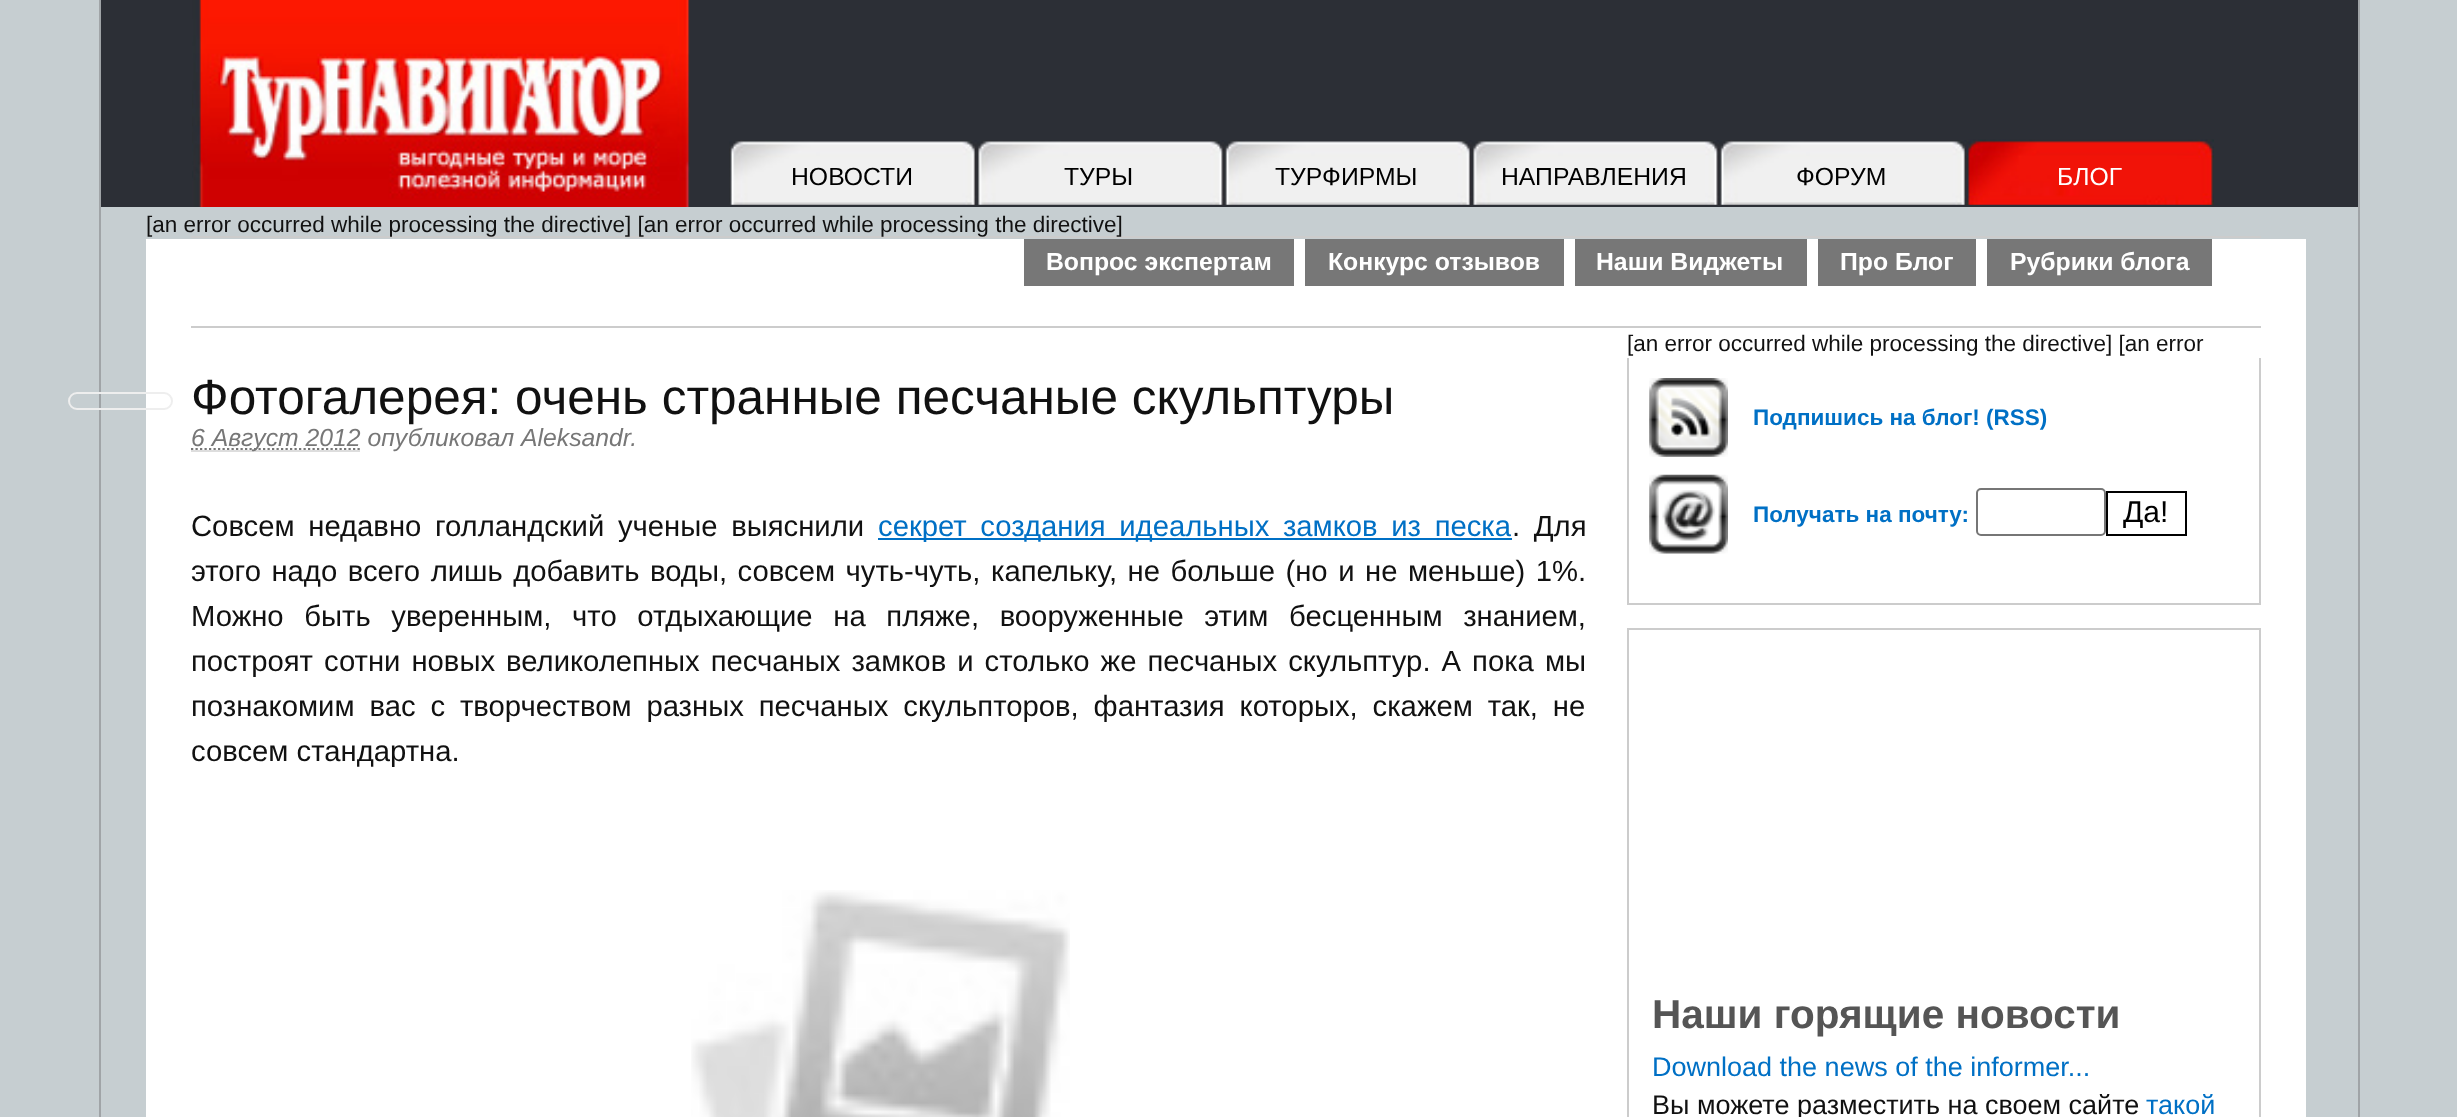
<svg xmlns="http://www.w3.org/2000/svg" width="2457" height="1117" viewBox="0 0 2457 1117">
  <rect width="100%" height="100%" fill="#c6ced1"/>
  <rect x="2358" y="0" width="2" height="1117" fill="#a0a4a7"/>
  <rect x="99" y="0" width="2" height="1117" fill="#a0a4a7"/>
  <rect x="101" y="0" width="2257" height="207" fill="#2c2f36"/>
  <image x="192" y="0" width="498" height="207" href="img1.png"/>
  <image x="729" y="140" width="248" height="65" href="img2.png"/>
  <text x="791" y="185" font-family="Liberation Sans" font-size="24.75" fill="#000000">НОВОСТИ</text>
  <image x="977" y="140" width="247" height="65" href="img3.png"/>
  <text x="1064" y="185" font-family="Liberation Sans" font-size="24.75" fill="#000000">ТУРЫ</text>
  <image x="1224" y="140" width="248" height="65" href="img4.png"/>
  <text x="1275" y="185" font-family="Liberation Sans" font-size="24.75" fill="#000000">ТУРФИРМЫ</text>
  <image x="1472" y="140" width="247" height="65" href="img5.png"/>
  <text x="1501" y="185" font-family="Liberation Sans" font-size="24.75" fill="#000000">НАПРАВЛЕНИЯ</text>
  <image x="1719" y="140" width="248" height="65" href="img6.png"/>
  <text x="1796" y="185" font-family="Liberation Sans" font-size="24.75" fill="#000000">ФОРУМ</text>
  <image x="1966" y="139" width="248" height="66" href="img7.png"/>
  <text x="2057" y="185" font-family="Liberation Sans" font-size="24.75" fill="#ffffff">БЛОГ</text>
  <rect x="146" y="239" width="2160" height="878" fill="#ffffff"/>
  <rect x="69" y="393" width="103" height="16" rx="8" fill="none" stroke="#eeeeee" stroke-width="2"/>
  <rect x="191" y="236" width="2070" height="2" fill="#cccccc"/>
  <text x="146" y="232" font-family="Liberation Sans" font-size="22.5" fill="#111111">[an error occurred while processing the directive] [an error occurred while processing the directive]</text>
  <rect x="1024" y="239" width="270" height="47" fill="#777777"/>
  <text x="1046" y="270" font-family="Liberation Sans" font-size="24.75" font-weight="bold" fill="#ffffff">Вопрос экспертам</text>
  <rect x="1305" y="239" width="259" height="47" fill="#777777"/>
  <text x="1328" y="270" font-family="Liberation Sans" font-size="24.75" font-weight="bold" fill="#ffffff">Конкурс отзывов</text>
  <rect x="1575" y="239" width="232" height="47" fill="#777777"/>
  <text x="1596" y="270" font-family="Liberation Sans" font-size="24.75" font-weight="bold" fill="#ffffff">Наши Виджеты</text>
  <rect x="1818" y="239" width="158" height="47" fill="#777777"/>
  <text x="1840" y="270" font-family="Liberation Sans" font-size="24.75" font-weight="bold" fill="#ffffff">Про Блог</text>
  <rect x="1987" y="239" width="225" height="47" fill="#777777"/>
  <text x="2010" y="270" font-family="Liberation Sans" font-size="24.75" font-weight="bold" fill="#ffffff">Рубрики блога</text>
  <rect x="191" y="326" width="2070" height="2" fill="#cccccc"/>
  <text x="1627" y="351" font-family="Liberation Sans" font-size="22.5" fill="#111111">[an error occurred while processing the directive] [an error</text>
  <text x="191" y="414" font-family="Liberation Sans" font-size="49.5" fill="#111111">Фотогалерея: очень странные песчаные скульптуры</text>
  <rect x="191" y="450" width="169" height="2" fill="#dddddd"/>
  <path d="M191 449H361" fill="none" stroke="#777777" stroke-width="2.2" stroke-dasharray="2.25 2.25"/>
  <text x="191" y="446" font-family="Liberation Sans" font-size="24.75" font-style="italic" fill="#777777">6 Август 2012 опубликовал Aleksandr.</text>
  <text x="191" y="536" word-spacing="5.5" font-family="Liberation Sans" font-size="29.25" fill="#111111">Совсем недавно голландский ученые выяснили</text>
  <rect x="878" y="538" width="634" height="2" fill="#0070c5"/>
  <text x="878" y="536" word-spacing="5.5" font-family="Liberation Sans" font-size="29.25" fill="#0070c5">секрет создания идеальных замков из песка</text>
  <text x="1512" y="536" word-spacing="5.5" font-family="Liberation Sans" font-size="29.25" fill="#111111">. Для</text>
  <text x="191" y="581" word-spacing="2.4" font-family="Liberation Sans" font-size="29.25" fill="#111111">этого надо всего лишь добавить воды, совсем чуть-чуть, капельку, не больше (но и не меньше) 1%.</text>
  <text x="191" y="626" word-spacing="12.5" font-family="Liberation Sans" font-size="29.25" fill="#111111">Можно быть уверенным, что отдыхающие на пляже, вооруженные этим бесценным знанием,</text>
  <text x="191" y="671" word-spacing="2.9" font-family="Liberation Sans" font-size="29.25" fill="#111111">построят сотни новых великолепных песчаных замков и столько же песчаных скульптур. А пока мы</text>
  <text x="191" y="716" word-spacing="6.75" font-family="Liberation Sans" font-size="29.25" fill="#111111">познакомим вас с творчеством разных песчаных скульпторов, фантазия которых, скажем так, не</text>
  <text x="191" y="761" font-family="Liberation Sans" font-size="29.25" fill="#111111">совсем стандартна.</text>
  <image x="691" y="890" width="379" height="227" href="img8.png"/>
  <rect x="2259" y="358" width="2" height="247" fill="#cccccc"/>
  <rect x="1627" y="603" width="634" height="2" fill="#cccccc"/>
  <rect x="1627" y="358" width="2" height="247" fill="#cccccc"/>
  <image x="1649" y="378" width="79" height="79" href="img9.png"/>
  <text x="1753" y="425" font-family="Liberation Sans" font-size="22.5" font-weight="bold" fill="#0070c5">Подпишись на блог! (RSS)</text>
  <image x="1649" y="474" width="79" height="80" href="img10.png"/>
  <text x="1753" y="522" font-family="Liberation Sans" font-size="22.5" font-weight="bold" fill="#0070c5">Получать на почту:</text>
  <rect x="1977" y="489" width="128" height="46" rx="4" fill="none" stroke="#767676" stroke-width="2"/>
  <rect x="2107" y="492" width="79" height="43" fill="none" stroke="#000000" stroke-width="2"/>
  <text x="2123" y="522" font-family="Liberation Sans" font-size="30" fill="#000000">Да!</text>
  <rect x="1627" y="628" width="634" height="2" fill="#cccccc"/>
  <rect x="2259" y="628" width="2" height="489" fill="#cccccc"/>
  <rect x="1627" y="628" width="2" height="489" fill="#cccccc"/>
  <text x="1652" y="1028" font-family="Liberation Sans" font-size="40.5" font-weight="bold" fill="#555555">Наши горящие новости</text>
  <text x="1652" y="1076" font-family="Liberation Sans" font-size="27" fill="#0070c5">Download the news of the informer...</text>
  <text x="1652" y="1114" font-family="Liberation Sans" font-size="27" fill="#111111">Вы можете разместить на своем сайте</text>
  <text x="2146" y="1114" font-family="Liberation Sans" font-size="27" fill="#0070c5">такой</text>
</svg>
